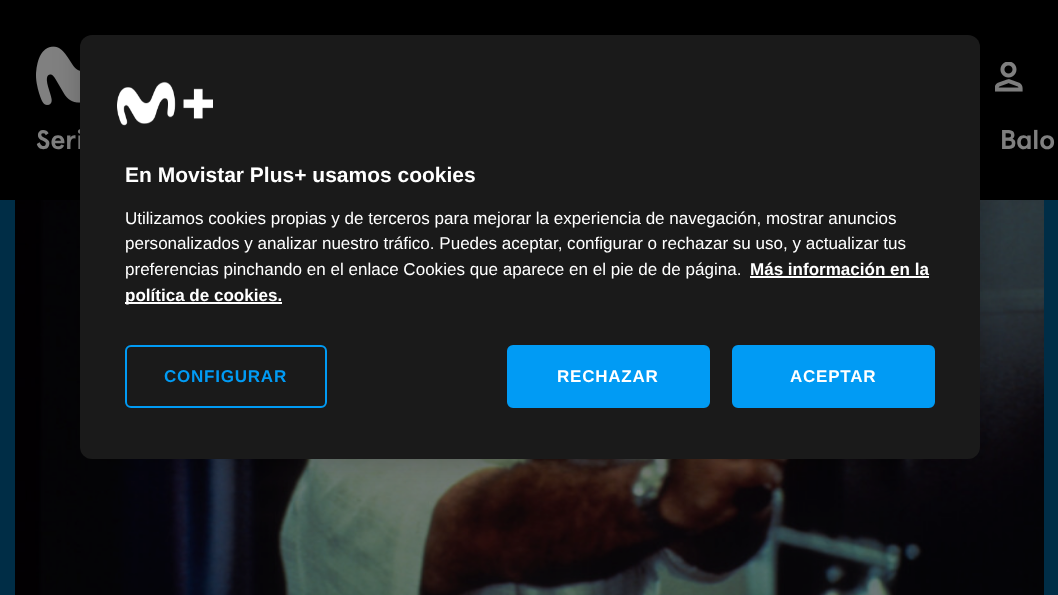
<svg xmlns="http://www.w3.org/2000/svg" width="1058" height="595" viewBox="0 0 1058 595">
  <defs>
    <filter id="blur1" x="-50%" y="-200%" width="200%" height="500%"><feGaussianBlur stdDeviation="13.5"/></filter>
  </defs>
  <rect width="100%" height="100%" fill="#002d46"/>
  <rect x="0" y="0" width="1058" height="200" fill="#000000"/>
  <image x="36" y="46" width="44" height="59" href="img1.png"/>
  <image x="995" y="62" width="28" height="30" href="img2.png"/>
  <text x="36" y="149" font-family="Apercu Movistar" font-size="27" font-weight="bold" fill="#808080">Seri</text>
  <text x="1000" y="149" font-family="Apercu Movistar" font-size="27" font-weight="bold" fill="#808080">Balo</text>
  <image x="15" y="200" width="1029" height="395" href="img4.png"/>
  <rect x="80" y="35" width="900" height="424" rx="12" fill="#000000" fill-opacity="0.2" filter="url(#blur1)"/>
  <rect x="80" y="35" width="900" height="424" rx="12" fill="#1a1a1a"/>
  <image x="117" y="81" width="96" height="45" href="img3.png"/>
  <text x="125" y="182" font-family="Liberation Sans" font-size="21" font-weight="bold" fill="#ffffff">En Movistar Plus+ usamos cookies</text>
  <text x="125" y="224" font-family="Liberation Sans" font-size="17.05" fill="#ffffff">Utilizamos cookies propias y de terceros para mejorar la experiencia de navegación, mostrar anuncios</text>
  <text x="125" y="249" font-family="Liberation Sans" font-size="17.05" fill="#ffffff">personalizados y analizar nuestro tráfico. Puedes aceptar, configurar o rechazar su uso, y actualizar tus</text>
  <text x="125" y="275" font-family="Liberation Sans" font-size="17.05" fill="#ffffff">preferencias pinchando en el enlace Cookies que aparece en el pie de de página.</text>
  <text x="750" y="275" font-family="Liberation Sans" font-size="17.05" font-weight="bold" fill="#ffffff">Más información en la</text>
  <rect x="750" y="276" width="179" height="2" fill="#ffffff"/>
  <rect x="125" y="302" width="157" height="2" fill="#ffffff"/>
  <text x="125" y="301" font-family="Liberation Sans" font-size="17.05" font-weight="bold" fill="#ffffff">política de cookies.</text>
  <rect x="126" y="346" width="200" height="61" rx="5" fill="none" stroke="#019bf4" stroke-width="2"/>
  <text x="164" y="382" font-family="Liberation Sans" font-size="17.05" font-weight="bold" letter-spacing="0.75" fill="#019bf4">CONFIGURAR</text>
  <rect x="508" y="346" width="201" height="61" rx="5" fill="#019bf4" stroke="#019bf4" stroke-width="2"/>
  <text x="557" y="382" font-family="Liberation Sans" font-size="17.05" font-weight="bold" letter-spacing="0.75" fill="#ffffff">RECHAZAR</text>
  <rect x="733" y="346" width="201" height="61" rx="5" fill="#019bf4" stroke="#019bf4" stroke-width="2"/>
  <text x="790" y="382" font-family="Liberation Sans" font-size="17.05" font-weight="bold" letter-spacing="0.75" fill="#ffffff">ACEPTAR</text>
</svg>
